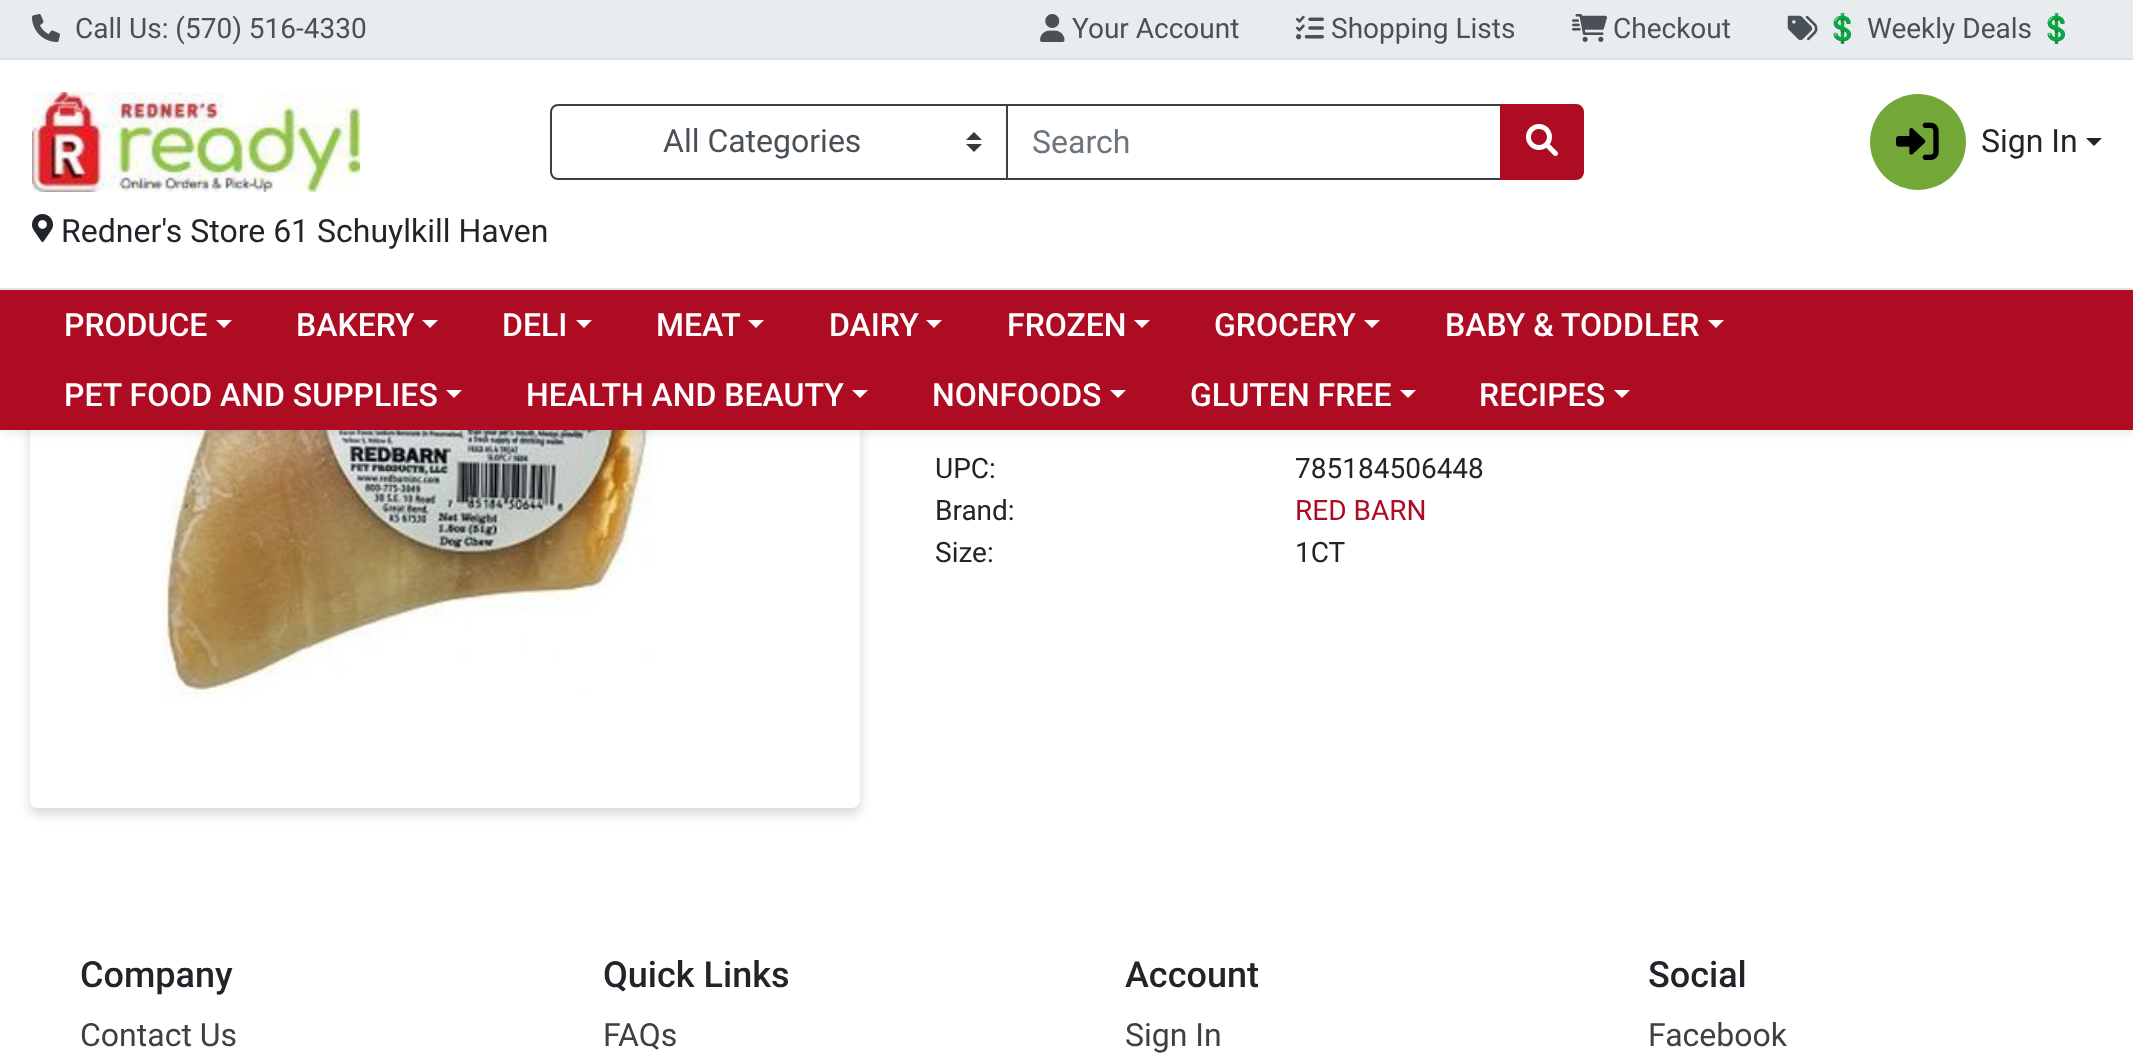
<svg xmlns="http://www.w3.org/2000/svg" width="2133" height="1055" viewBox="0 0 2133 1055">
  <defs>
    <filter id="blur1" x="-50%" y="-200%" width="200%" height="500%"><feGaussianBlur stdDeviation="6"/></filter>
    <filter id="blur2" x="-50%" y="-200%" width="200%" height="500%"><feGaussianBlur stdDeviation="4"/></filter>
  </defs>
  <rect width="100%" height="100%" fill="#ffffff"/>
  <rect x="30" y="14" width="830" height="800" rx="8" fill="#000000" fill-opacity="0.16" filter="url(#blur1)"/>
  <rect x="30" y="8" width="830" height="800" rx="8" fill="#ffffff"/>
  <image x="161" y="430" width="504" height="268" href="img10.png"/>
  <rect x="0" y="4" width="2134" height="430" fill="#000000" fill-opacity="0.07" filter="url(#blur2)"/>
  <rect x="0" y="60" width="2133" height="228" fill="#ffffff"/>
  <rect x="0" y="0" width="2133" height="58" fill="#e9ecef"/>
  <rect x="0" y="58" width="2133" height="2" fill="#dee2e6"/>
  <image x="32" y="14" width="28" height="28" href="img1.png"/>
  <text x="75" y="38" font-family="Roboto" font-size="28" fill="#495057">Call Us: (570) 516-4330</text>
  <image x="1040" y="14" width="25" height="28" href="img2.png"/>
  <text x="1072" y="38" font-family="Roboto" font-size="28" fill="#495057">Your Account</text>
  <image x="1296" y="15" width="28" height="25" href="img3.png"/>
  <text x="1331" y="38" font-family="Roboto" font-size="28" fill="#495057">Shopping Lists</text>
  <image x="1572" y="14" width="35" height="28" href="img4.png"/>
  <text x="1613" y="38" font-family="Roboto" font-size="28" fill="#495057">Checkout</text>
  <image x="1787" y="15" width="31" height="26" href="img5.png"/>
  <text x="1825" y="38" font-family="Noto Color Emoji" font-size="28" fill="#495057">💲</text>
  <text x="1867" y="38" font-family="Roboto" font-size="28" fill="#495057">Weekly Deals</text>
  <text x="2039" y="38" font-family="Noto Color Emoji" font-size="28" fill="#495057">💲</text>
  <rect x="0" y="288" width="2133" height="2" fill="#dee2e6"/>
  <image x="32" y="92" width="328" height="100" href="img6.png"/>
  <rect x="1007" y="105" width="494" height="74" fill="none" stroke="#404040" stroke-width="2"/>
  <path d="M558 104H1008V180H558C553.5 180 550 176.5 550 172V112C550 107.5 553.5 104 558 104Z" fill="#ffffff"/>
  <path d="M974 132L966 140H982ZM974 152L966 144H982Z" fill="#343a40"/>
  <path d="M558 105H1007V179H558C554 179 551 176 551 172V112C551 108 554 105 558 105Z" fill="none" stroke="#404040" stroke-width="2"/>
  <text x="663" y="152" font-family="Roboto" font-size="32" fill="#495057">All Categories</text>
  <text x="1032" y="153" font-family="Roboto" font-size="32" fill="#6c757d">Search</text>
  <path d="M1501 105H1576C1580 105 1583 108 1583 112V172C1583 176 1580 179 1576 179H1501Z" fill="#ad0c23" stroke="#ad0c23" stroke-width="2"/>
  <image x="1526" y="124" width="32" height="32" href="img7.png"/>
  <circle cx="1918" cy="142" r="48" fill="#73a839"/>
  <image x="1896" y="122" width="43" height="38" href="img8.png"/>
  <text x="1981" y="152" font-family="Roboto" font-size="32" fill="#212529">Sign In</text>
  <path d="M2086 138H2102L2094 146Z" fill="#212529"/>
  <image x="32" y="214" width="21" height="28" href="img9.png"/>
  <text x="61" y="242" font-family="Roboto" font-size="32" fill="#212529">Redner's Store 61 Schuylkill Haven</text>
  <rect x="0" y="290" width="2133" height="140" fill="#ad0c23"/>
  <text x="64" y="336" font-family="Roboto" font-size="32" font-weight="500" fill="#ffffff">PRODUCE</text>
  <path d="M216 320H232L224 328Z" fill="#ffffff"/>
  <text x="296" y="336" font-family="Roboto" font-size="32" font-weight="500" fill="#ffffff">BAKERY</text>
  <path d="M422 320H438L430 328Z" fill="#ffffff"/>
  <text x="502" y="336" font-family="Roboto" font-size="32" font-weight="500" fill="#ffffff">DELI</text>
  <path d="M576 320H592L584 328Z" fill="#ffffff"/>
  <text x="656" y="336" font-family="Roboto" font-size="32" font-weight="500" fill="#ffffff">MEAT</text>
  <path d="M748 320H764L756 328Z" fill="#ffffff"/>
  <text x="829" y="336" font-family="Roboto" font-size="32" font-weight="500" fill="#ffffff">DAIRY</text>
  <path d="M926 320H942L934 328Z" fill="#ffffff"/>
  <text x="1007" y="336" font-family="Roboto" font-size="32" font-weight="500" fill="#ffffff">FROZEN</text>
  <path d="M1134 320H1150L1142 328Z" fill="#ffffff"/>
  <text x="1214" y="336" font-family="Roboto" font-size="32" font-weight="500" fill="#ffffff">GROCERY</text>
  <path d="M1364 320H1380L1372 328Z" fill="#ffffff"/>
  <text x="1445" y="336" font-family="Roboto" font-size="32" font-weight="500" fill="#ffffff">BABY &amp; TODDLER</text>
  <path d="M1708 320H1724L1716 328Z" fill="#ffffff"/>
  <text x="64" y="406" font-family="Roboto" font-size="32" font-weight="500" fill="#ffffff">PET FOOD AND SUPPLIES</text>
  <path d="M446 390H462L454 398Z" fill="#ffffff"/>
  <text x="526" y="406" font-family="Roboto" font-size="32" font-weight="500" fill="#ffffff">HEALTH AND BEAUTY</text>
  <path d="M852 390H868L860 398Z" fill="#ffffff"/>
  <text x="932" y="406" font-family="Roboto" font-size="32" font-weight="500" fill="#ffffff">NONFOODS</text>
  <path d="M1110 390H1126L1118 398Z" fill="#ffffff"/>
  <text x="1190" y="406" font-family="Roboto" font-size="32" font-weight="500" fill="#ffffff">GLUTEN FREE</text>
  <path d="M1400 390H1416L1408 398Z" fill="#ffffff"/>
  <text x="1479" y="406" font-family="Roboto" font-size="32" font-weight="500" fill="#ffffff">RECIPES</text>
  <path d="M1614 390H1630L1622 398Z" fill="#ffffff"/>
  <text x="935" y="478" font-family="Roboto" font-size="28" fill="#212529">UPC:</text>
  <text x="1295" y="478" font-family="Roboto" font-size="28" fill="#212529">785184506448</text>
  <text x="935" y="520" font-family="Roboto" font-size="28" fill="#212529">Brand:</text>
  <text x="1295" y="520" font-family="Roboto" font-size="28" fill="#ad0c23">RED BARN</text>
  <text x="935" y="562" font-family="Roboto" font-size="28" fill="#212529">Size:</text>
  <text x="1295" y="562" font-family="Roboto" font-size="28" fill="#212529">1CT</text>
  <text x="80" y="987" font-family="Roboto" font-size="36" font-weight="500" fill="#212529">Company</text>
  <text x="80" y="1046" font-family="Roboto" font-size="32" fill="#404040">Contact Us</text>
  <text x="603" y="987" font-family="Roboto" font-size="36" font-weight="500" fill="#212529">Quick Links</text>
  <text x="603" y="1046" font-family="Roboto" font-size="32" fill="#404040">FAQs</text>
  <text x="1125" y="987" font-family="Roboto" font-size="36" font-weight="500" fill="#212529">Account</text>
  <text x="1125" y="1046" font-family="Roboto" font-size="32" fill="#404040">Sign In</text>
  <text x="1648" y="987" font-family="Roboto" font-size="36" font-weight="500" fill="#212529">Social</text>
  <text x="1648" y="1046" font-family="Roboto" font-size="32" fill="#404040">Facebook</text>
</svg>
